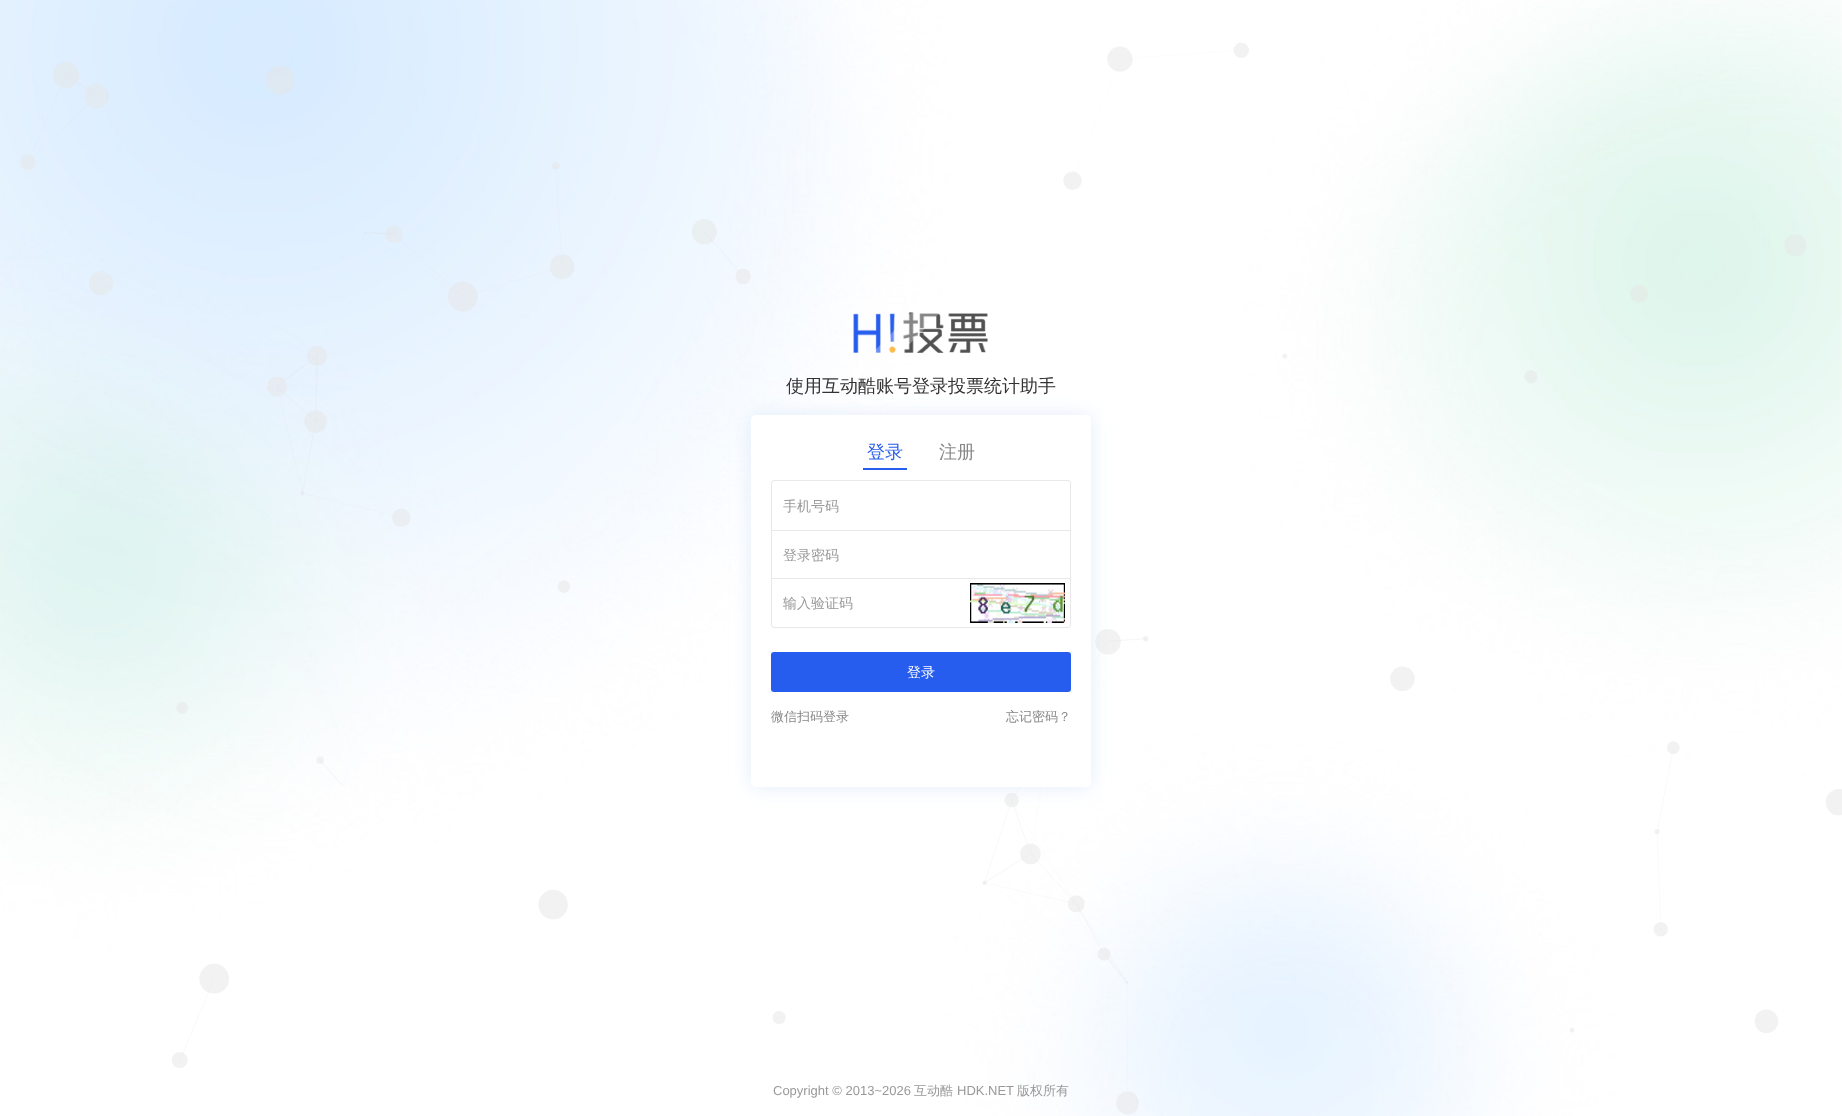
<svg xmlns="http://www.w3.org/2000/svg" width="1842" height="1116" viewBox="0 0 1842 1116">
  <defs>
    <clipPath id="clip1"><rect x="846" y="298" width="150" height="69"/></clipPath>
    <filter id="blur1" x="-50%" y="-200%" width="200%" height="500%"><feGaussianBlur stdDeviation="10"/></filter>
  </defs>
  <rect width="100%" height="100%" fill="#ffffff"/>
  <image x="0" y="0" width="1842" height="1116" href="img1.png"/>
  <image x="20" y="42" width="1822" height="1073" href="img2.png"/>
  <image x="853" y="312" width="135" height="41" href="img3.png"/>
  <g clip-path="url(#clip1)">
    <path d="M955 297L872 383L857 369L940 283Z" fill="#ffffff" fill-opacity="0.3"/>
  </g>
  <rect x="751" y="415" width="340" height="372" rx="5" fill="#c8dcf5" fill-opacity="0.5" filter="url(#blur1)"/>
  <text x="786" y="392" font-family="WenQuanYi Zen Hei" font-size="18" font-weight="500" fill="#333333">使用互动酷账号登录投票统计助手</text>
  <rect x="751" y="415" width="340" height="372" rx="5" fill="#ffffff"/>
  <text x="867" y="458" font-family="WenQuanYi Zen Hei" font-size="18" font-weight="500" fill="#275dee">登录</text>
  <text x="939" y="458" font-family="WenQuanYi Zen Hei" font-size="18" font-weight="500" fill="#888888">注册</text>
  <rect x="863" y="468" width="44" height="2" fill="#275dee"/>
  <rect x="771.5" y="480.5" width="299" height="147" rx="2.5" fill="none" stroke="#e8e8e8"/>
  <text x="783" y="511" font-family="WenQuanYi Zen Hei" font-size="14" font-weight="500" fill="#999999">手机号码</text>
  <rect x="772" y="530" width="298" height="1" fill="#e8e8e8"/>
  <text x="783" y="560" font-family="WenQuanYi Zen Hei" font-size="14" font-weight="500" fill="#999999">登录密码</text>
  <rect x="772" y="578" width="298" height="1" fill="#e8e8e8"/>
  <text x="783" y="608" font-family="WenQuanYi Zen Hei" font-size="14" font-weight="500" fill="#999999">输入验证码</text>
  <image x="970" y="583" width="95" height="40" href="img4.png"/>
  <rect x="771" y="652" width="300" height="40" rx="3" fill="#275dee"/>
  <text x="907" y="677" font-family="WenQuanYi Zen Hei" font-size="14" font-weight="500" fill="#ffffff">登录</text>
  <text x="771" y="721" font-family="WenQuanYi Zen Hei" font-size="13" font-weight="500" fill="#888888">微信扫码登录</text>
  <text x="1006" y="721" font-family="WenQuanYi Zen Hei" font-size="13" font-weight="500" fill="#888888">忘记密码？</text>
  <text x="773" y="1095" font-family="Liberation Sans" font-size="13" fill="#999999">Copyright © 2013~2026</text>
  <text x="914" y="1095" font-family="WenQuanYi Zen Hei" font-size="13" font-weight="500" fill="#999999">互动酷</text>
  <text x="957" y="1095" font-family="Liberation Sans" font-size="13" fill="#999999">HDK.NET</text>
  <text x="1017" y="1095" font-family="WenQuanYi Zen Hei" font-size="13" font-weight="500" fill="#999999">版权所有</text>
</svg>
